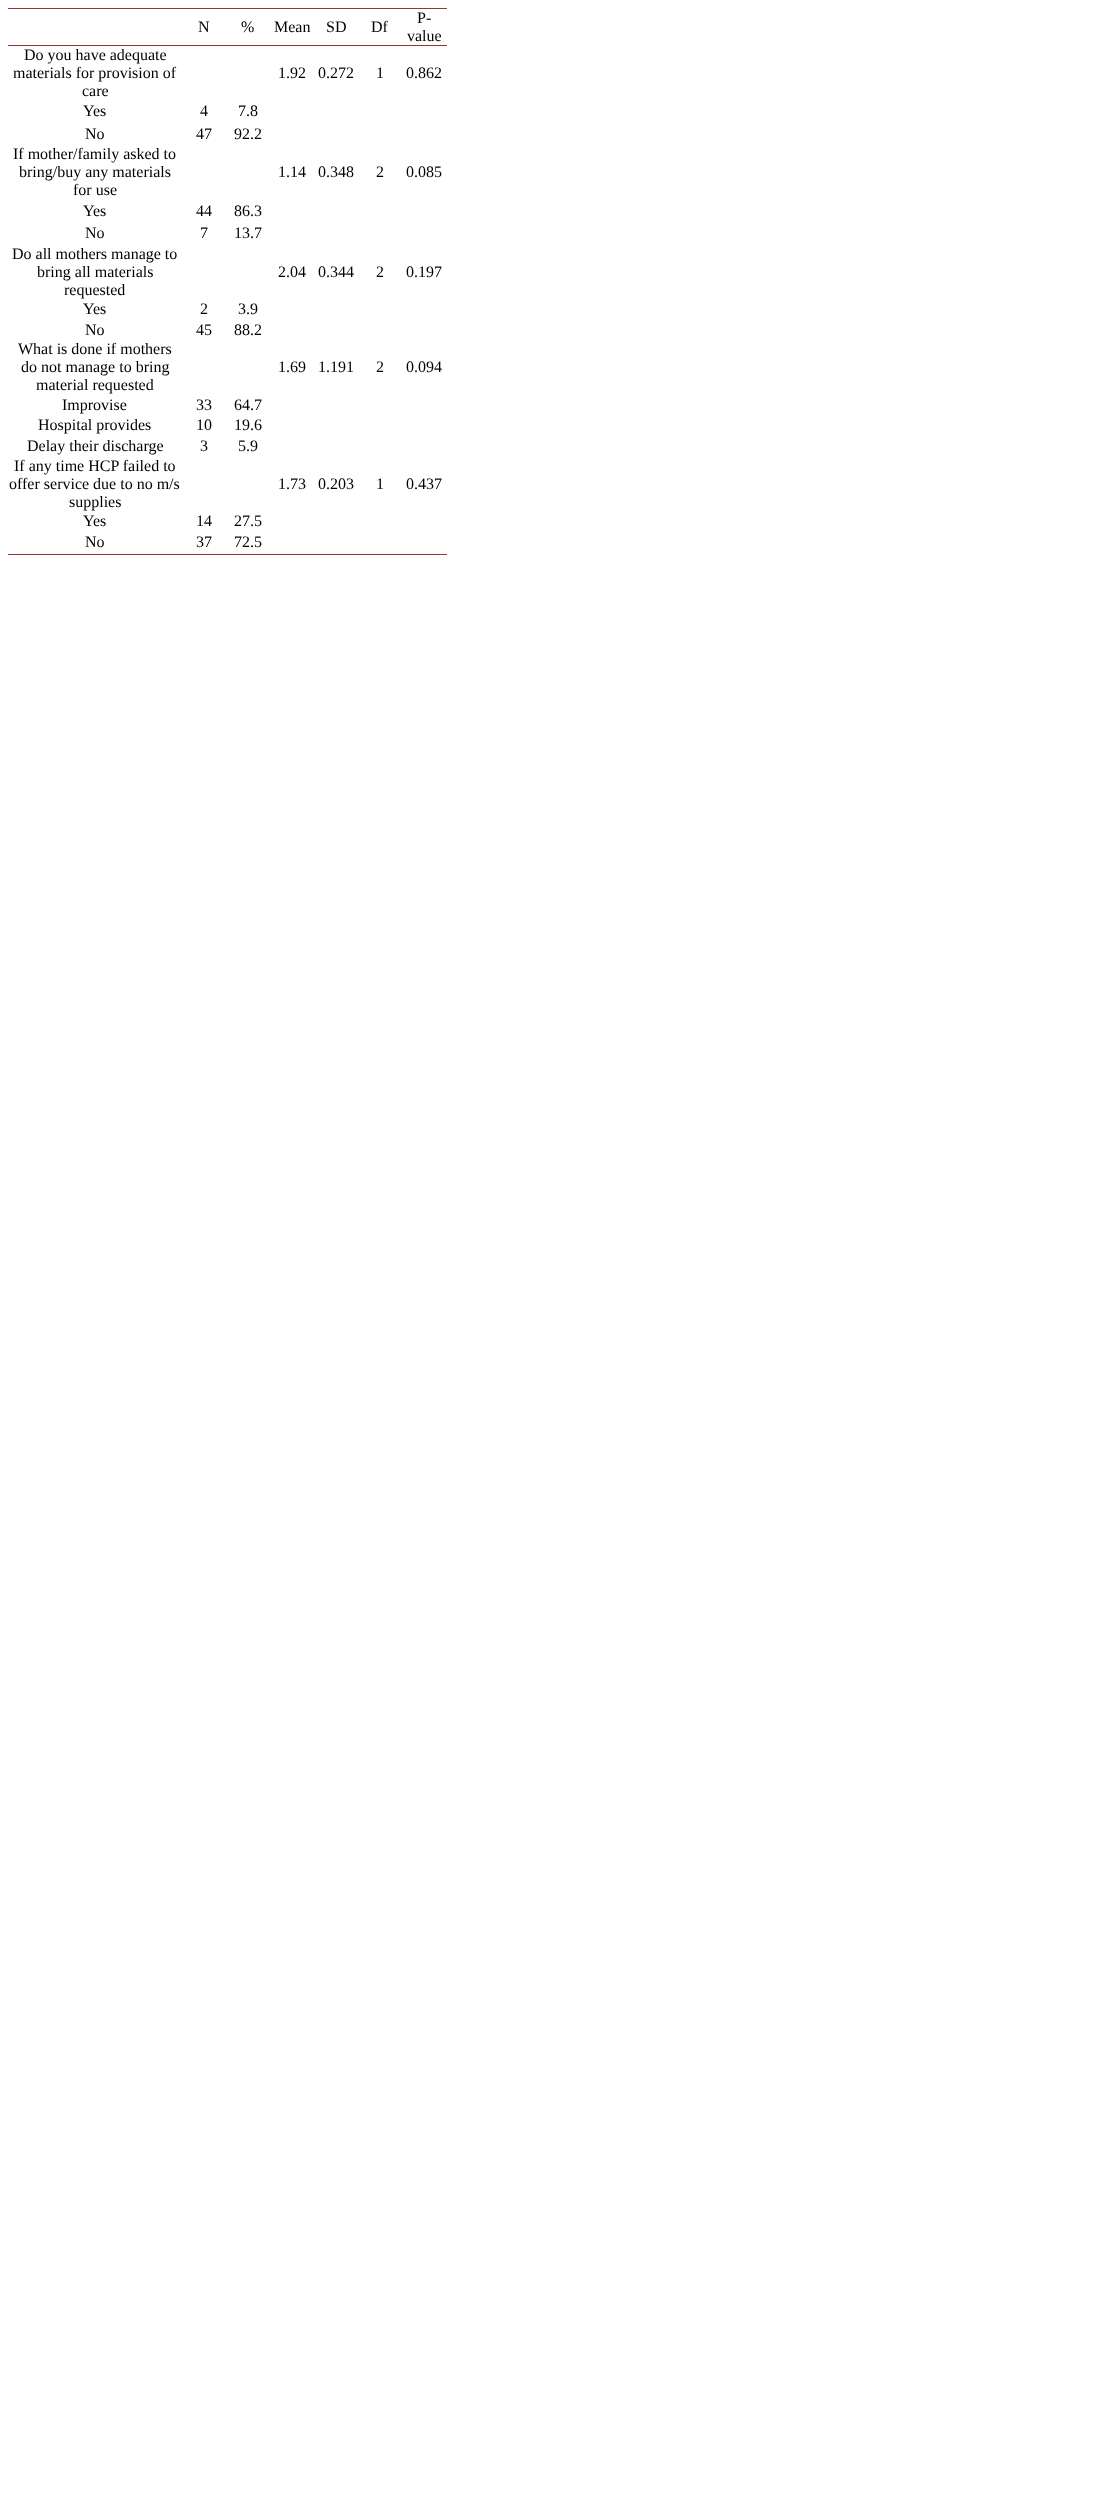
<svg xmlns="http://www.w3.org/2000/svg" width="1096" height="2514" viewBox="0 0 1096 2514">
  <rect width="100%" height="100%" fill="#ffffff"/>
  <text x="198" y="32" font-family="Liberation Serif" font-size="16" fill="#000000">N</text>
  <text x="241" y="32" font-family="Liberation Serif" font-size="16" fill="#000000">%</text>
  <text x="274" y="32" font-family="Liberation Serif" font-size="16" fill="#000000">Mean</text>
  <text x="326" y="32" font-family="Liberation Serif" font-size="16" fill="#000000">SD</text>
  <text x="371" y="32" font-family="Liberation Serif" font-size="16" fill="#000000">Df</text>
  <rect x="8" y="8" width="439" height="1" fill="#943634"/>
  <rect x="8" y="45" width="439" height="1" fill="#943634"/>
  <text x="417" y="23" font-family="Liberation Serif" font-size="16" fill="#000000">P-</text>
  <text x="407" y="41" font-family="Liberation Serif" font-size="16" fill="#000000">value</text>
  <text x="24" y="60" font-family="Liberation Serif" font-size="16" fill="#000000">Do you have adequate</text>
  <text x="13" y="78" font-family="Liberation Serif" font-size="16" fill="#000000">materials for provision of</text>
  <text x="82" y="96" font-family="Liberation Serif" font-size="16" fill="#000000">care</text>
  <text x="278" y="78" font-family="Liberation Serif" font-size="16" fill="#000000">1.92</text>
  <text x="318" y="78" font-family="Liberation Serif" font-size="16" fill="#000000">0.272</text>
  <text x="376" y="78" font-family="Liberation Serif" font-size="16" fill="#000000">1</text>
  <text x="406" y="78" font-family="Liberation Serif" font-size="16" fill="#000000">0.862</text>
  <text x="83" y="116" font-family="Liberation Serif" font-size="16" fill="#000000">Yes</text>
  <text x="200" y="116" font-family="Liberation Serif" font-size="16" fill="#000000">4</text>
  <text x="238" y="116" font-family="Liberation Serif" font-size="16" fill="#000000">7.8</text>
  <text x="85" y="139" font-family="Liberation Serif" font-size="16" fill="#000000">No</text>
  <text x="196" y="139" font-family="Liberation Serif" font-size="16" fill="#000000">47</text>
  <text x="234" y="139" font-family="Liberation Serif" font-size="16" fill="#000000">92.2</text>
  <text x="13" y="159" font-family="Liberation Serif" font-size="16" fill="#000000">If mother/family asked to</text>
  <text x="19" y="177" font-family="Liberation Serif" font-size="16" fill="#000000">bring/buy any materials</text>
  <text x="73" y="195" font-family="Liberation Serif" font-size="16" fill="#000000">for use</text>
  <text x="278" y="177" font-family="Liberation Serif" font-size="16" fill="#000000">1.14</text>
  <text x="318" y="177" font-family="Liberation Serif" font-size="16" fill="#000000">0.348</text>
  <text x="376" y="177" font-family="Liberation Serif" font-size="16" fill="#000000">2</text>
  <text x="406" y="177" font-family="Liberation Serif" font-size="16" fill="#000000">0.085</text>
  <text x="83" y="216" font-family="Liberation Serif" font-size="16" fill="#000000">Yes</text>
  <text x="196" y="216" font-family="Liberation Serif" font-size="16" fill="#000000">44</text>
  <text x="234" y="216" font-family="Liberation Serif" font-size="16" fill="#000000">86.3</text>
  <text x="85" y="238" font-family="Liberation Serif" font-size="16" fill="#000000">No</text>
  <text x="200" y="238" font-family="Liberation Serif" font-size="16" fill="#000000">7</text>
  <text x="234" y="238" font-family="Liberation Serif" font-size="16" fill="#000000">13.7</text>
  <text x="12" y="259" font-family="Liberation Serif" font-size="16" fill="#000000">Do all mothers manage to</text>
  <text x="37" y="277" font-family="Liberation Serif" font-size="16" fill="#000000">bring all materials</text>
  <text x="64" y="295" font-family="Liberation Serif" font-size="16" fill="#000000">requested</text>
  <text x="278" y="277" font-family="Liberation Serif" font-size="16" fill="#000000">2.04</text>
  <text x="318" y="277" font-family="Liberation Serif" font-size="16" fill="#000000">0.344</text>
  <text x="376" y="277" font-family="Liberation Serif" font-size="16" fill="#000000">2</text>
  <text x="406" y="277" font-family="Liberation Serif" font-size="16" fill="#000000">0.197</text>
  <text x="83" y="314" font-family="Liberation Serif" font-size="16" fill="#000000">Yes</text>
  <text x="200" y="314" font-family="Liberation Serif" font-size="16" fill="#000000">2</text>
  <text x="238" y="314" font-family="Liberation Serif" font-size="16" fill="#000000">3.9</text>
  <text x="85" y="335" font-family="Liberation Serif" font-size="16" fill="#000000">No</text>
  <text x="196" y="335" font-family="Liberation Serif" font-size="16" fill="#000000">45</text>
  <text x="234" y="335" font-family="Liberation Serif" font-size="16" fill="#000000">88.2</text>
  <text x="18" y="354" font-family="Liberation Serif" font-size="16" fill="#000000">What is done if mothers</text>
  <text x="21" y="372" font-family="Liberation Serif" font-size="16" fill="#000000">do not manage to bring</text>
  <text x="36" y="390" font-family="Liberation Serif" font-size="16" fill="#000000">material requested</text>
  <text x="278" y="372" font-family="Liberation Serif" font-size="16" fill="#000000">1.69</text>
  <text x="318" y="372" font-family="Liberation Serif" font-size="16" fill="#000000">1.191</text>
  <text x="376" y="372" font-family="Liberation Serif" font-size="16" fill="#000000">2</text>
  <text x="406" y="372" font-family="Liberation Serif" font-size="16" fill="#000000">0.094</text>
  <text x="62" y="410" font-family="Liberation Serif" font-size="16" fill="#000000">Improvise</text>
  <text x="196" y="410" font-family="Liberation Serif" font-size="16" fill="#000000">33</text>
  <text x="234" y="410" font-family="Liberation Serif" font-size="16" fill="#000000">64.7</text>
  <text x="38" y="430" font-family="Liberation Serif" font-size="16" fill="#000000">Hospital provides</text>
  <text x="196" y="430" font-family="Liberation Serif" font-size="16" fill="#000000">10</text>
  <text x="234" y="430" font-family="Liberation Serif" font-size="16" fill="#000000">19.6</text>
  <text x="27" y="451" font-family="Liberation Serif" font-size="16" fill="#000000">Delay their discharge</text>
  <text x="200" y="451" font-family="Liberation Serif" font-size="16" fill="#000000">3</text>
  <text x="238" y="451" font-family="Liberation Serif" font-size="16" fill="#000000">5.9</text>
  <text x="14" y="471" font-family="Liberation Serif" font-size="16" fill="#000000">If any time HCP failed to</text>
  <text x="9" y="489" font-family="Liberation Serif" font-size="16" fill="#000000">offer service due to no m/s</text>
  <text x="69" y="507" font-family="Liberation Serif" font-size="16" fill="#000000">supplies</text>
  <text x="278" y="489" font-family="Liberation Serif" font-size="16" fill="#000000">1.73</text>
  <text x="318" y="489" font-family="Liberation Serif" font-size="16" fill="#000000">0.203</text>
  <text x="376" y="489" font-family="Liberation Serif" font-size="16" fill="#000000">1</text>
  <text x="406" y="489" font-family="Liberation Serif" font-size="16" fill="#000000">0.437</text>
  <text x="83" y="526" font-family="Liberation Serif" font-size="16" fill="#000000">Yes</text>
  <text x="196" y="526" font-family="Liberation Serif" font-size="16" fill="#000000">14</text>
  <text x="234" y="526" font-family="Liberation Serif" font-size="16" fill="#000000">27.5</text>
  <text x="85" y="547" font-family="Liberation Serif" font-size="16" fill="#000000">No</text>
  <text x="196" y="547" font-family="Liberation Serif" font-size="16" fill="#000000">37</text>
  <text x="234" y="547" font-family="Liberation Serif" font-size="16" fill="#000000">72.5</text>
  <rect x="8" y="554" width="439" height="1" fill="#943634"/>
</svg>
